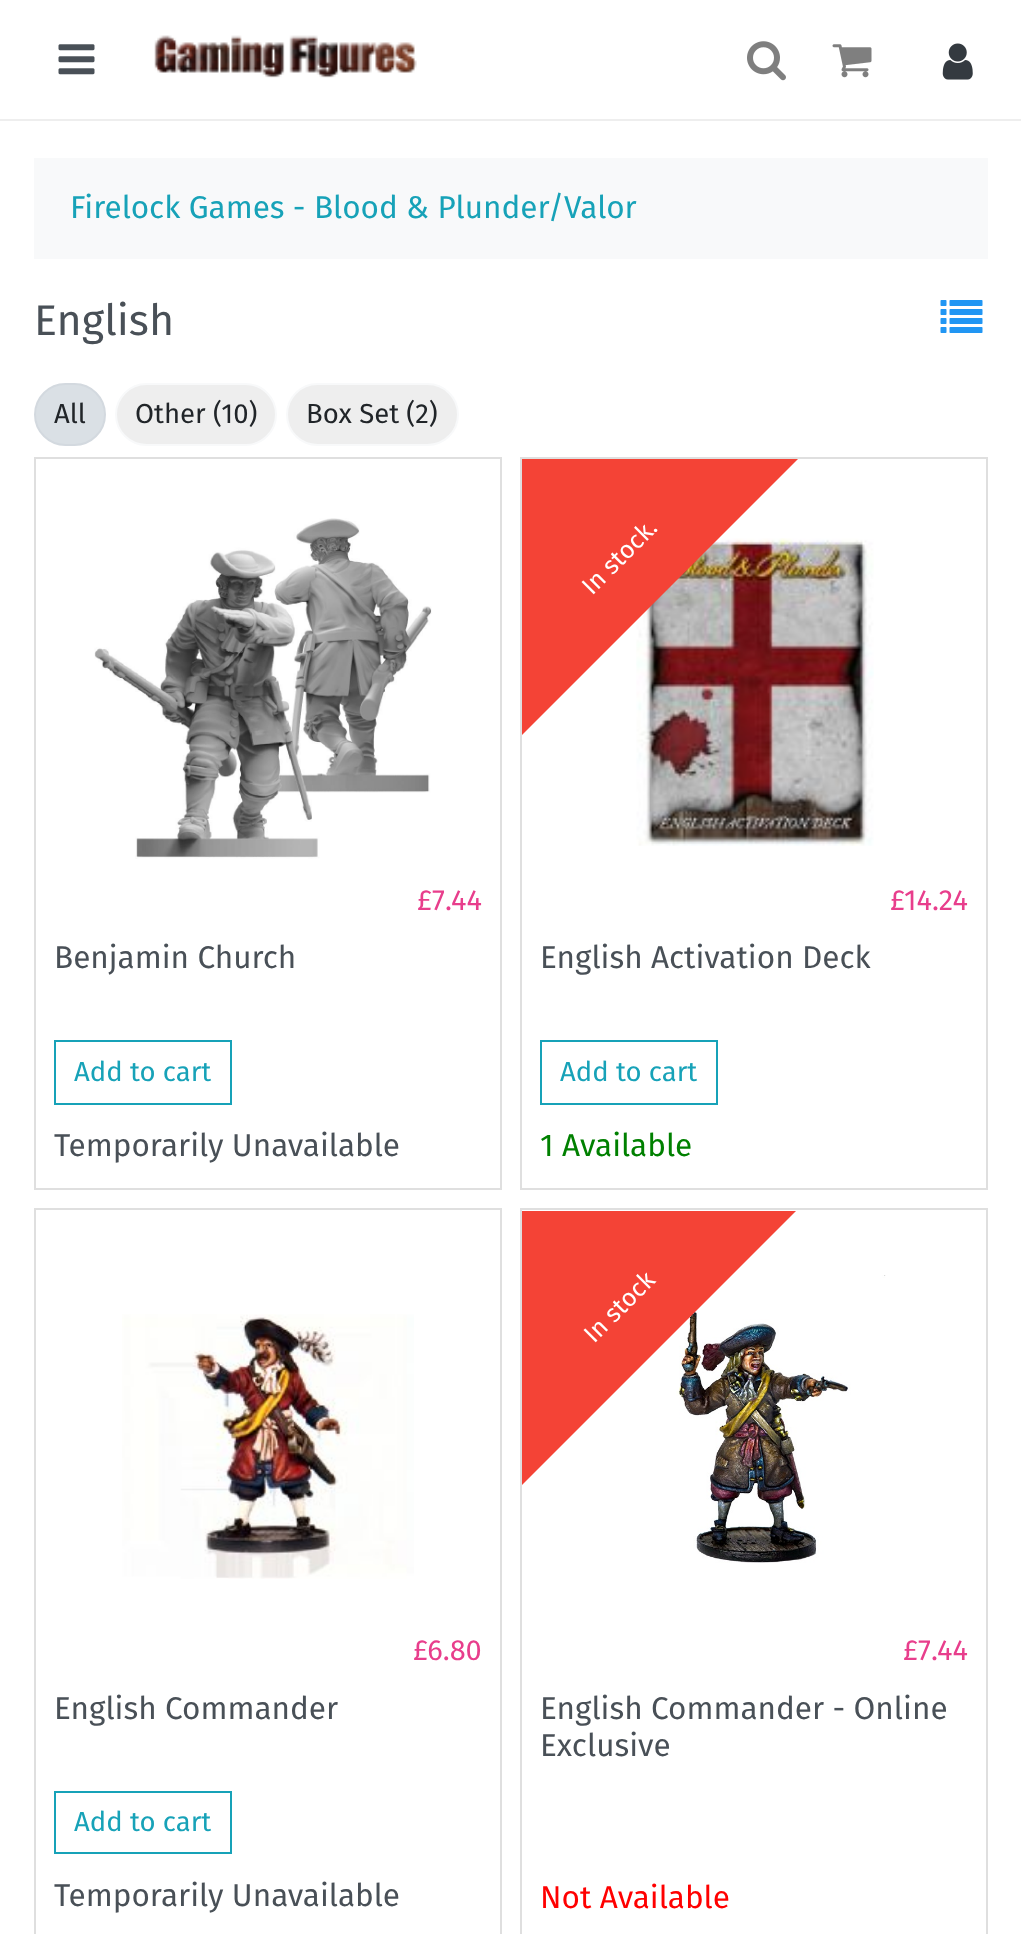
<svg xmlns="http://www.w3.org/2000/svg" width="1021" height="1934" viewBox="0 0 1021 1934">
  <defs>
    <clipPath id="clip1"><rect x="522" y="459" width="405" height="338"/></clipPath>
    <clipPath id="clip2"><rect x="522" y="1211" width="405" height="337"/></clipPath>
  </defs>
  <rect width="100%" height="100%" fill="#ffffff"/>
  <rect x="0" y="119" width="1021" height="2" fill="#eeeeee"/>
  <image x="58" y="44" width="37" height="31" href="img1.png"/>
  <image x="154" y="35" width="263" height="43" href="img2.png"/>
  <image x="747" y="41" width="39" height="40" href="img3.png"/>
  <image x="832" y="44" width="40" height="34" href="img4.png"/>
  <image x="942" y="43" width="31" height="37" href="img5.png"/>
  <rect x="34" y="158" width="954" height="101" fill="#f8f9fa"/>
  <text x="70" y="218" font-family="Fira Sans" font-size="31.5" fill="#17a2b8">Firelock Games - Blood &amp; Plunder/Valor</text>
  <text x="34" y="335" font-family="Fira Sans" font-size="43" fill="#495057">English</text>
  <image x="940" y="300" width="43" height="33" href="img6.png"/>
  <rect x="35" y="384" width="70" height="61" rx="30.5" fill="#dae0e5" stroke="#d3d9df" stroke-width="2"/>
  <text x="54" y="423" font-family="Fira Sans" font-size="27.5" fill="#212529">All</text>
  <rect x="116" y="384" width="160" height="61" rx="30.5" fill="#eeeeee" stroke="#f8f9fa" stroke-width="2"/>
  <text x="135" y="423" font-family="Fira Sans" font-size="27.5" fill="#212529">Other (10)</text>
  <rect x="287" y="384" width="171" height="61" rx="30.5" fill="#eeeeee" stroke="#f8f9fa" stroke-width="2"/>
  <text x="306" y="423" font-family="Fira Sans" font-size="27.5" fill="#212529">Box Set (2)</text>
  <rect x="35" y="458" width="466" height="731" fill="none" stroke="#dfdfdf" stroke-width="2"/>
  <image x="94" y="518" width="338" height="341" href="img7.png"/>
  <text x="417" y="910" font-family="Fira Sans" font-size="29" fill="#e83e8c">£7.44</text>
  <text x="54" y="968" font-family="Fira Sans" font-size="31.5" fill="#495057">Benjamin Church</text>
  <rect x="55" y="1041" width="176" height="63" fill="none" stroke="#17a2b8" stroke-width="2"/>
  <text x="74" y="1081" font-family="Fira Sans" font-size="27.5" fill="#17a2b8">Add to cart</text>
  <text x="54" y="1156" font-family="Fira Sans" font-size="31.5" fill="#495057">Temporarily Unavailable</text>
  <rect x="521" y="458" width="466" height="731" fill="none" stroke="#dfdfdf" stroke-width="2"/>
  <image x="636" y="538" width="238" height="308" href="img8.png"/>
  <g clip-path="url(#clip1)">
    <path d="M376 599L662 312L803 454L517 740Z" fill="#f44336"/>
  </g>
  <text x="592" y="596" transform="rotate(-45 592 596)" font-family="Fira Sans" font-size="25" fill="#ffffff">In stock.</text>
  <text x="890" y="910" font-family="Fira Sans" font-size="29" fill="#e83e8c">£14.24</text>
  <text x="540" y="968" font-family="Fira Sans" font-size="31.5" fill="#495057">English Activation Deck</text>
  <rect x="541" y="1041" width="176" height="63" fill="none" stroke="#17a2b8" stroke-width="2"/>
  <text x="560" y="1081" font-family="Fira Sans" font-size="27.5" fill="#17a2b8">Add to cart</text>
  <text x="540" y="1156" font-family="Fira Sans" font-size="31.5" fill="#008000">1 Available</text>
  <rect x="35" y="1209" width="466" height="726" fill="none" stroke="#dfdfdf" stroke-width="2"/>
  <image x="122" y="1314" width="292" height="265" href="img9.png"/>
  <text x="413" y="1660" font-family="Fira Sans" font-size="29" fill="#e83e8c">£6.80</text>
  <text x="54" y="1719" font-family="Fira Sans" font-size="31.5" fill="#495057">English Commander</text>
  <rect x="55" y="1792" width="176" height="61" fill="none" stroke="#17a2b8" stroke-width="2"/>
  <text x="74" y="1831" font-family="Fira Sans" font-size="27.5" fill="#17a2b8">Add to cart</text>
  <text x="54" y="1906" font-family="Fira Sans" font-size="31.5" fill="#495057">Temporarily Unavailable</text>
  <rect x="521" y="1209" width="466" height="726" fill="none" stroke="#dfdfdf" stroke-width="2"/>
  <image x="676" y="1275" width="210" height="288" href="img10.png"/>
  <g clip-path="url(#clip2)">
    <path d="M376 1349L662 1062L803 1204L517 1490Z" fill="#f44336"/>
  </g>
  <text x="594" y="1344" transform="rotate(-45 594 1344)" font-family="Fira Sans" font-size="25" fill="#ffffff">In stock</text>
  <text x="903" y="1660" font-family="Fira Sans" font-size="29" fill="#e83e8c">£7.44</text>
  <text x="540" y="1719" font-family="Fira Sans" font-size="31.5" fill="#495057">English Commander - Online</text>
  <text x="540" y="1756" font-family="Fira Sans" font-size="31.5" fill="#495057">Exclusive</text>
  <text x="540" y="1908" font-family="Fira Sans" font-size="31.5" fill="#ff0000">Not Available</text>
</svg>
